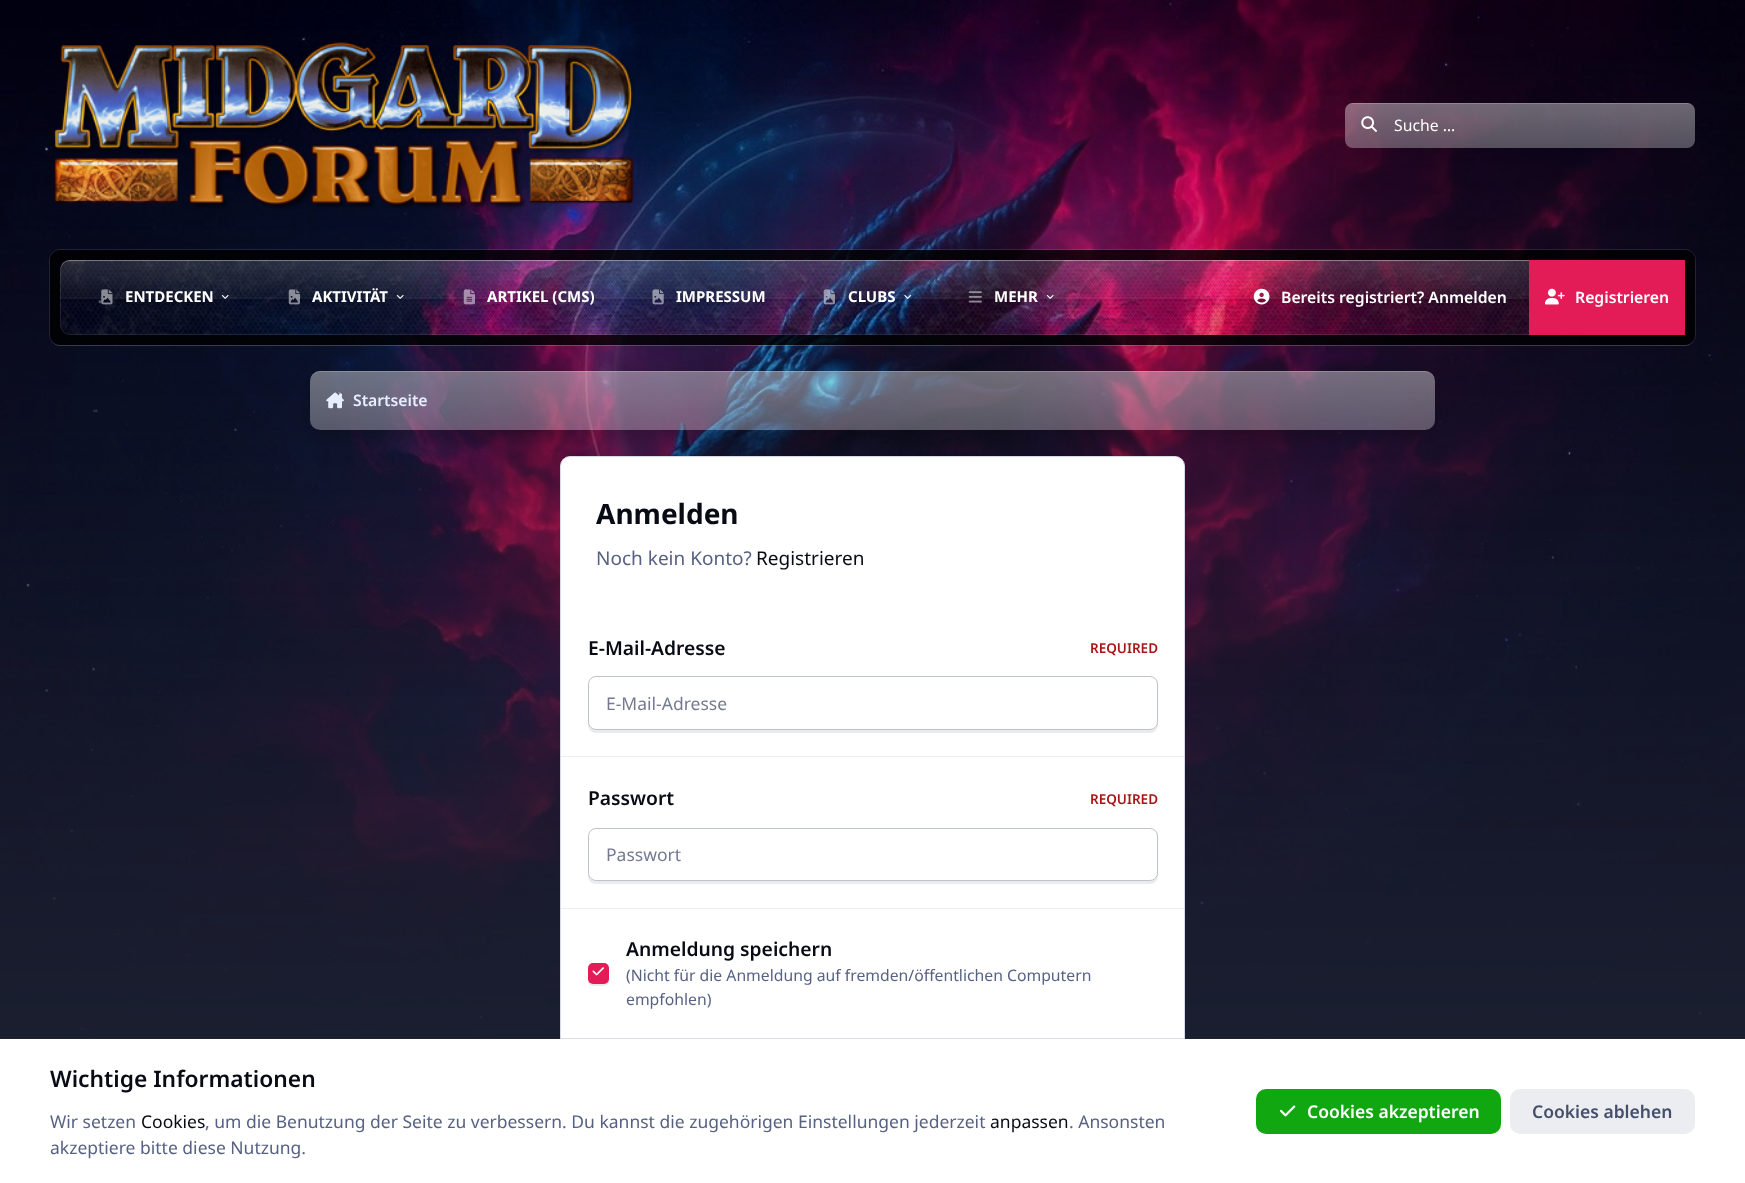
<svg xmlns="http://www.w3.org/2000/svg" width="1745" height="1183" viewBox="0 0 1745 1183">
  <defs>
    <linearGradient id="g1" gradientUnits="userSpaceOnUse" x1="1520" y1="102" x2="1520" y2="148"><stop offset="0" stop-color="#ffffff" stop-opacity="0.4"/><stop offset="1" stop-color="#ffffff" stop-opacity="0.3"/></linearGradient>
    <clipPath id="clip1"><path d="M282 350H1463V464H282ZM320 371H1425C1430.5 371 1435 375.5 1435 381V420C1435 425.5 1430.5 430 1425 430H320C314.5 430 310 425.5 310 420V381C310 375.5 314.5 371 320 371Z" clip-rule="evenodd"/></clipPath>
    <filter id="blur1" x="-50%" y="-200%" width="200%" height="500%"><feGaussianBlur stdDeviation="9"/></filter>
    <linearGradient id="g2" gradientUnits="userSpaceOnUse" x1="873" y1="371" x2="873" y2="430"><stop offset="0" stop-color="#ffffff" stop-opacity="0.4"/><stop offset="1" stop-color="#ffffff" stop-opacity="0.3"/></linearGradient>
    <filter id="blur2" x="-50%" y="-200%" width="200%" height="500%"><feGaussianBlur stdDeviation="0.5"/></filter>
  </defs>
  <rect width="100%" height="100%" fill="#1e2334"/>
  <image x="0" y="0" width="1745" height="1039" href="img1.png"/>
  <image x="53" y="42" width="582" height="167" href="img2.png"/>
  <rect x="1345" y="103" width="350" height="45" rx="8" fill="url(#g1)"/>
  <path d="M1352 104H1688C1692 104 1695 107 1695 111C1695 107 1691 103 1687 103H1353C1349 103 1345 107 1345 111C1345 107 1348 104 1352 104Z" fill="#ffffff" fill-opacity="0.2"/>
  <image x="1361" y="116" width="16" height="16" href="img3.png"/>
  <text x="1394" y="131" font-family="Noto Sans" font-size="15.75" fill="#ffffff">Suche …</text>
  <path d="M50 335C50 341 54 346 60 346H1685C1691 346 1695 341 1695 335C1695 341 1691 345 1685 345H60C54 345 50 341 50 335Z" fill="#ffffff" fill-opacity="0.1"/>
  <rect x="49.5" y="249.5" width="1646" height="96" rx="10.5" fill="none" stroke="#ffffff" stroke-opacity="0.1"/>
  <rect x="50" y="250" width="1645" height="95" rx="10" fill="#000000" fill-opacity="0.8"/>
  <image x="60" y="260" width="1469" height="75" href="img4.png"/>
  <image x="60" y="260" width="1469" height="75" href="img5.png"/>
  <path d="M70 261H1675C1681 261 1685 266 1685 271C1685 265 1681 260 1675 260H70C64 260 60 265 60 271C60 266 64 261 70 261Z" fill="#ffffff" fill-opacity="0.3"/>
  <rect x="60.5" y="260.5" width="1624" height="74" rx="9.5" fill="none" stroke="#ffffff" stroke-opacity="0.1"/>
  <image x="101" y="289" width="12" height="16" href="img6.png"/>
  <text x="125" y="302" font-family="Noto Sans" font-size="15" font-weight="bold" fill="#ffffff">ENTDECKEN</text>
  <image x="221" y="295" width="8" height="4" href="img7.png"/>
  <image x="288" y="289" width="12" height="16" href="img8.png"/>
  <text x="312" y="302" font-family="Noto Sans" font-size="15" font-weight="bold" fill="#ffffff">AKTIVITÄT</text>
  <image x="396" y="295" width="8" height="4" href="img9.png"/>
  <image x="463" y="289" width="12" height="16" href="img10.png"/>
  <text x="487" y="302" font-family="Noto Sans" font-size="15" font-weight="bold" fill="#ffffff">ARTIKEL (CMS)</text>
  <image x="652" y="289" width="12" height="16" href="img11.png"/>
  <text x="676" y="302" font-family="Noto Sans" font-size="15" font-weight="bold" fill="#ffffff">IMPRESSUM</text>
  <image x="823" y="289" width="12" height="16" href="img12.png"/>
  <text x="848" y="302" font-family="Noto Sans" font-size="15" font-weight="bold" fill="#ffffff">CLUBS</text>
  <image x="904" y="295" width="7" height="4" href="img13.png"/>
  <image x="968" y="291" width="14" height="12" href="img14.png"/>
  <text x="994" y="302" font-family="Noto Sans" font-size="15" font-weight="bold" fill="#ffffff">MEHR</text>
  <image x="1046" y="295" width="8" height="4" href="img15.png"/>
  <image x="1253" y="288" width="17" height="17" href="img16.png"/>
  <text x="1281" y="303" font-family="Noto Sans" font-size="15.75" font-weight="600" fill="#ffffff">Bereits registriert? Anmelden</text>
  <rect x="1529" y="260" width="156" height="75" fill="#e31c58"/>
  <image x="1545" y="288" width="20" height="17" href="img17.png"/>
  <text x="1575" y="303" font-family="Noto Sans" font-size="15.75" font-weight="600" fill="#ffffff">Registrieren</text>
  <rect x="560.5" y="456.5" width="624" height="718" rx="9.5" fill="#ffffff" stroke="#d6dae6"/>
  <g clip-path="url(#clip1)">
    <rect x="310" y="378" width="1125" height="58" rx="10" fill="#000000" fill-opacity="0.2" filter="url(#blur1)"/>
  </g>
  <rect x="310" y="371" width="1125" height="59" rx="10" fill="url(#g2)"/>
  <path d="M320 372H1425C1431 372 1435 377 1435 382C1435 376 1431 371 1425 371H320C314 371 310 376 310 382C310 377 314 372 320 372Z" fill="#ffffff" fill-opacity="0.2"/>
  <image x="326" y="392" width="18" height="17" href="img18.png"/>
  <text x="353" y="406" font-family="Noto Sans" font-size="15.75" font-weight="600" fill="#e6eeff">Startseite</text>
  <text x="596" y="524" font-family="Noto Sans" font-size="28" font-weight="bold" fill="#080b14">Anmelden</text>
  <text x="596" y="565" font-family="Noto Sans" font-size="19" fill="#576283">Noch kein Konto?</text>
  <text x="756" y="565" font-family="Noto Sans" font-size="19" fill="#080b14">Registrieren</text>
  <rect x="561" y="756" width="623" height="1" fill="#ecedf0"/>
  <text x="588" y="655" font-family="Noto Sans" font-size="19.25" font-weight="600" fill="#080b14">E-Mail-Adresse</text>
  <text x="1090" y="653" font-family="Noto Sans" font-size="13.5" font-weight="600" fill="#a81515">REQUIRED</text>
  <rect x="588" y="679" width="570" height="54" rx="8" fill="#000000" fill-opacity="0.08" filter="url(#blur2)"/>
  <rect x="588" y="676" width="570" height="54" rx="8" fill="#ffffff"/>
  <rect x="588.5" y="676.5" width="569" height="53" rx="7.5" fill="none" stroke="#454f6b" stroke-opacity="0.35"/>
  <text x="606" y="710" font-family="Noto Sans" font-size="17.5" fill="#747b90">E-Mail-Adresse</text>
  <rect x="561" y="908" width="623" height="1" fill="#ecedf0"/>
  <text x="588" y="805" font-family="Noto Sans" font-size="19.25" font-weight="600" fill="#080b14">Passwort</text>
  <text x="1090" y="804" font-family="Noto Sans" font-size="13.5" font-weight="600" fill="#a81515">REQUIRED</text>
  <rect x="588" y="830" width="570" height="54" rx="8" fill="#000000" fill-opacity="0.08" filter="url(#blur2)"/>
  <rect x="588" y="828" width="570" height="53" rx="8" fill="#ffffff"/>
  <rect x="588.5" y="828.5" width="569" height="52" rx="7.5" fill="none" stroke="#454f6b" stroke-opacity="0.35"/>
  <text x="606" y="861" font-family="Noto Sans" font-size="17.5" fill="#747b90">Passwort</text>
  <rect x="561" y="1038" width="623" height="1" fill="#ecedf0"/>
  <rect x="588" y="965" width="21" height="21" rx="5" fill="#000000" fill-opacity="0.08" filter="url(#blur2)"/>
  <rect x="588" y="963" width="21" height="21" rx="5" fill="#e31c58"/>
  <image x="592" y="967" width="12" height="9" href="img19.png"/>
  <text x="626" y="956" font-family="Noto Sans" font-size="19.25" font-weight="600" fill="#080b14">Anmeldung speichern</text>
  <text x="626" y="981" font-family="Noto Sans" font-size="15.75" fill="#576283">(Nicht für die Anmeldung auf fremden/öffentlichen Computern</text>
  <text x="626" y="1005" font-family="Noto Sans" font-size="15.75" fill="#576283">empfohlen)</text>
  <rect x="0" y="1039" width="1745" height="144" fill="#ffffff"/>
  <rect x="0" y="1038" width="1745" height="1" fill="#454f6b" fill-opacity="0.1"/>
  <text x="50" y="1087" font-family="Noto Sans" font-size="22.75" font-weight="600" fill="#080b14">Wichtige Informationen</text>
  <text x="50" y="1128" font-family="Noto Sans" font-size="17.5" fill="#576283">Wir setzen</text>
  <text x="141" y="1128" font-family="Noto Sans" font-size="17.5" fill="#080b14">Cookies</text>
  <text x="205" y="1128" font-family="Noto Sans" font-size="17.5" fill="#576283">, um die Benutzung der Seite zu verbessern. Du kannst die zugehörigen Einstellungen jederzeit</text>
  <text x="990" y="1128" font-family="Noto Sans" font-size="17.5" fill="#080b14">anpassen</text>
  <text x="1069" y="1128" font-family="Noto Sans" font-size="17.5" fill="#576283">. Ansonsten</text>
  <text x="50" y="1154" font-family="Noto Sans" font-size="17.5" fill="#576283">akzeptiere bitte diese Nutzung.</text>
  <rect x="1256" y="1089" width="245" height="45" rx="10" fill="#11a711"/>
  <image x="1280" y="1105" width="16" height="12" href="img20.png"/>
  <text x="1307" y="1118" font-family="Noto Sans" font-size="17.5" font-weight="600" fill="#ffffff">Cookies akzeptieren</text>
  <rect x="1510" y="1089" width="185" height="45" rx="10" fill="#ecedf0"/>
  <text x="1532" y="1118" font-family="Noto Sans" font-size="17.5" font-weight="600" fill="#454f6b">Cookies ablehen</text>
</svg>
